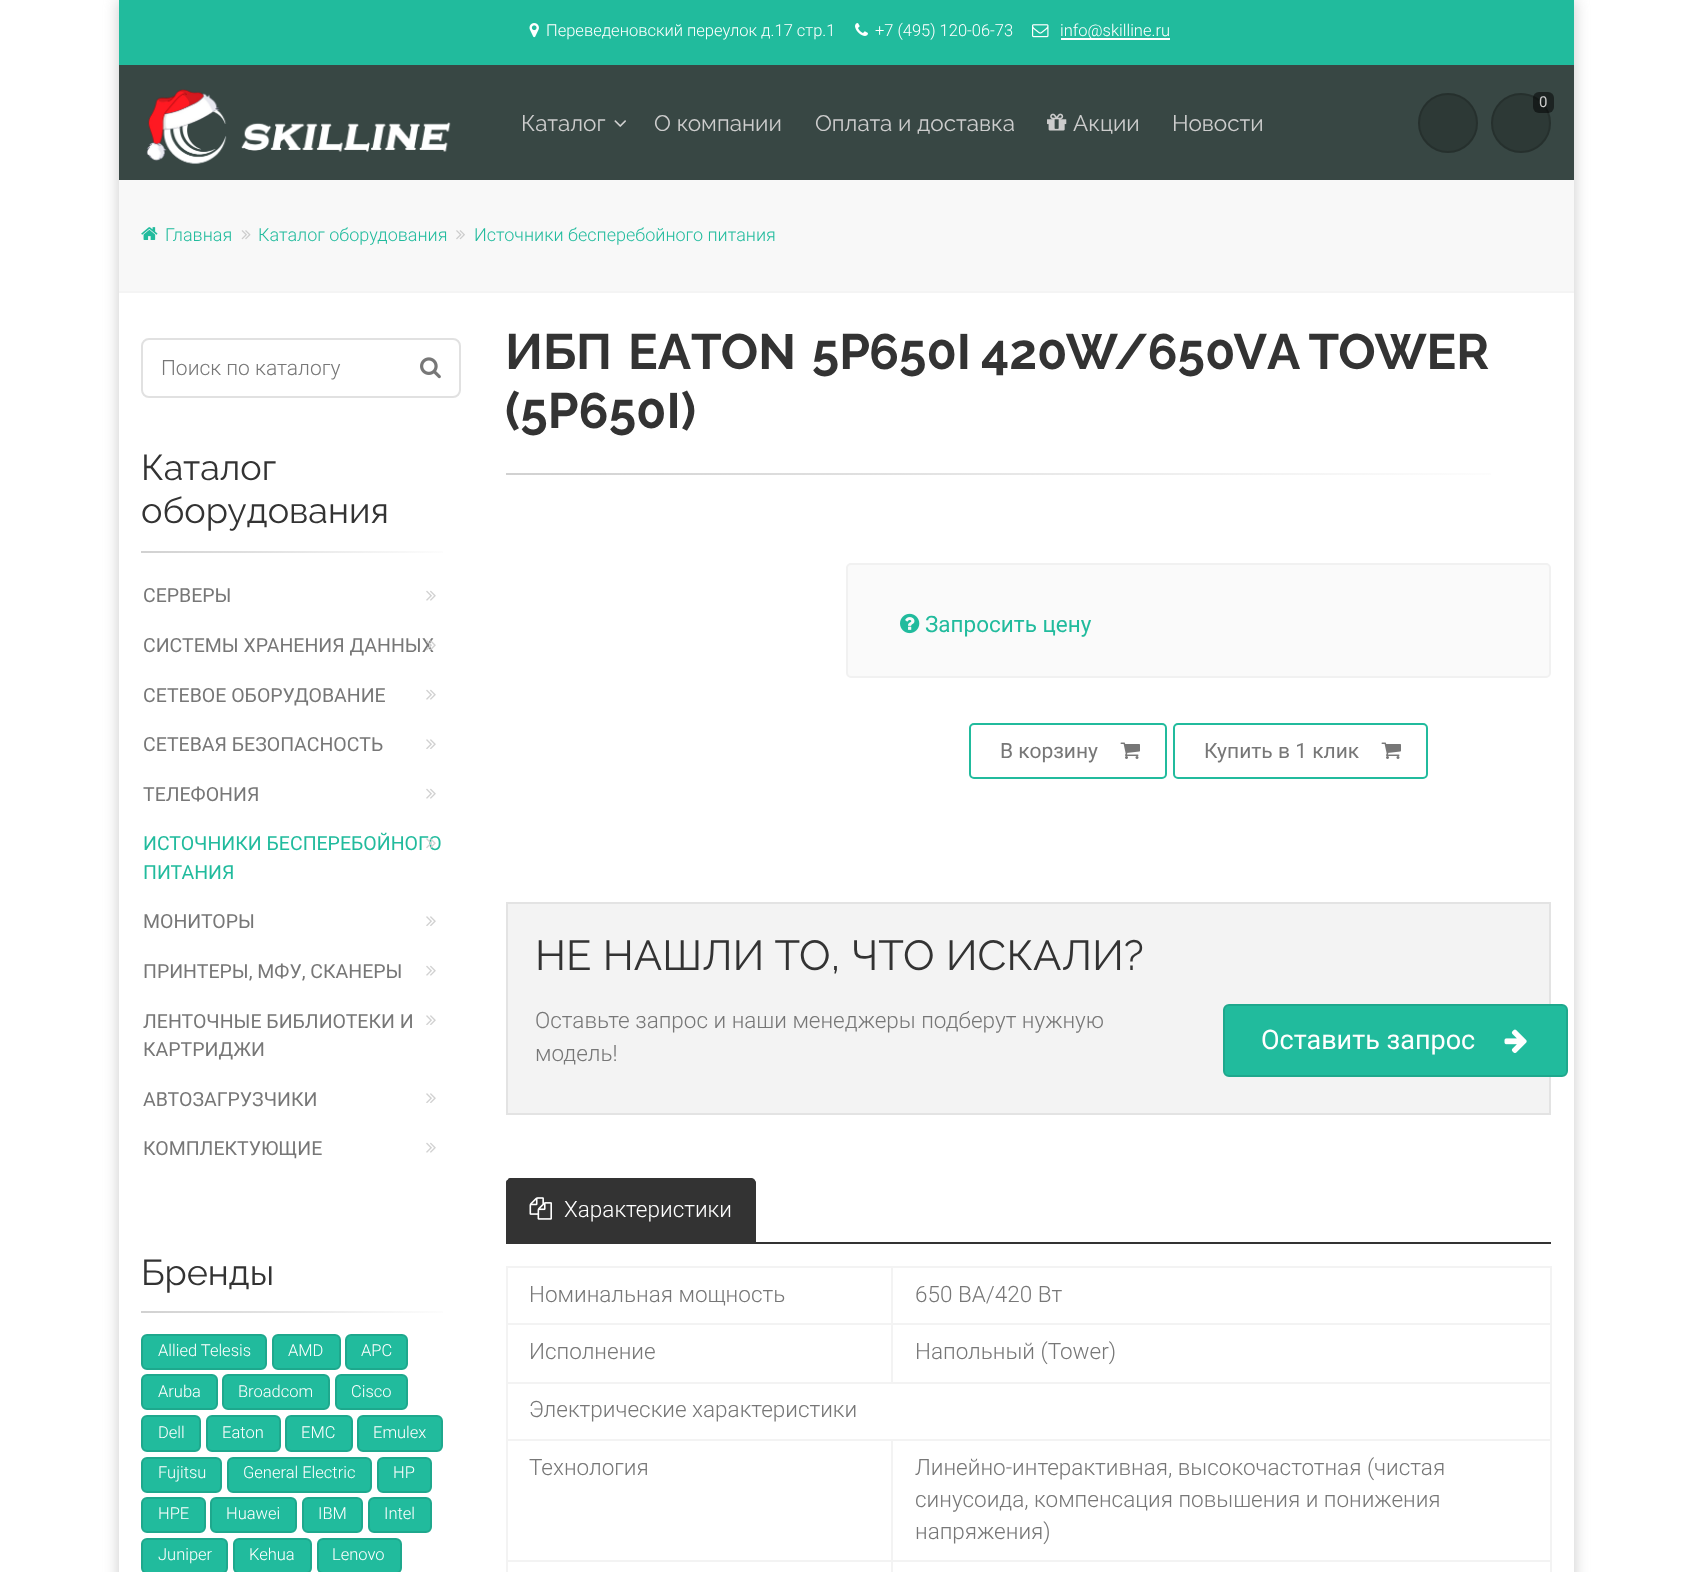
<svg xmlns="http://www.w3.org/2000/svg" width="1691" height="1572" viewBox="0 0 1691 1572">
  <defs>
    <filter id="blur1" x="-50%" y="-200%" width="200%" height="500%"><feGaussianBlur stdDeviation="7.5"/></filter>
    <linearGradient id="g1" gradientUnits="userSpaceOnUse" x1="141" y1="551" x2="461" y2="551"><stop offset="0" stop-color="#d1d1d1"/><stop offset="0.35" stop-color="#e0e0e0"/><stop offset="0.7" stop-color="#f2f2f2"/><stop offset="1" stop-color="#ffffff"/></linearGradient>
    <linearGradient id="g2" gradientUnits="userSpaceOnUse" x1="141" y1="1312" x2="461" y2="1312"><stop offset="0" stop-color="#d1d1d1"/><stop offset="0.35" stop-color="#e0e0e0"/><stop offset="0.7" stop-color="#f2f2f2"/><stop offset="1" stop-color="#ffffff"/></linearGradient>
    <linearGradient id="g3" gradientUnits="userSpaceOnUse" x1="506" y1="473" x2="1551" y2="473"><stop offset="0" stop-color="#d1d1d1"/><stop offset="0.35" stop-color="#e0e0e0"/><stop offset="0.7" stop-color="#f2f2f2"/><stop offset="1" stop-color="#ffffff"/></linearGradient>
  </defs>
  <rect width="100%" height="100%" fill="#ffffff"/>
  <rect x="119" y="0" width="1455" height="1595" fill="#cacaca" filter="url(#blur1)"/>
  <rect x="119" y="293" width="1455" height="1279" fill="#ffffff"/>
  <rect x="119" y="0" width="1455" height="65" fill="#21bb9d"/>
  <image x="529" y="23" width="10" height="15" href="img1.png"/>
  <text x="546" y="36" font-family="Roboto" font-size="16.5" font-weight="300" fill="#ffffff">Переведеновский переулок д.17 стр.1</text>
  <image x="855" y="23" width="13" height="13" href="img2.png"/>
  <text x="875" y="36" font-family="Roboto" font-size="16.5" font-weight="300" fill="#ffffff">+7 (495) 120-06-73</text>
  <image x="1032" y="24" width="17" height="14" href="img3.png"/>
  <rect x="1061" y="38" width="109" height="2" fill="#ffffff"/>
  <text x="1060" y="36" font-family="Roboto" font-size="16.5" font-weight="300" fill="#ffffff">info@skilline.ru</text>
  <rect x="119" y="65" width="1455" height="115" fill="#384744"/>
  <image x="146" y="89" width="305" height="75" href="img4.png"/>
  <circle cx="1448" cy="123" r="30" fill="#2d3936"/>
  <circle cx="1448" cy="123" r="29" fill="none" stroke="#000000" stroke-opacity="0.15" stroke-width="2"/>
  <circle cx="1521" cy="123" r="30" fill="#2d3936"/>
  <circle cx="1521" cy="123" r="29" fill="none" stroke="#000000" stroke-opacity="0.15" stroke-width="2"/>
  <rect x="1533" y="92" width="21" height="21" rx="6" fill="#000000" fill-opacity="0.5"/>
  <text x="1539" y="107" font-family="Roboto" font-size="15" fill="#cdcdcd">0</text>
  <text x="521" y="131" font-family="Raleway" font-size="22.5" fill="#cdcdcd">Каталог</text>
  <image x="614" y="120" width="12" height="7" href="img5.png"/>
  <text x="654" y="131" font-family="Raleway" font-size="22.5" fill="#cdcdcd">О компании</text>
  <text x="815" y="131" font-family="Raleway" font-size="22.5" fill="#cdcdcd">Оплата и доставка</text>
  <image x="1047" y="113" width="20" height="18" href="img6.png"/>
  <text x="1073" y="131" font-family="Raleway" font-size="22.5" fill="#cdcdcd">Акции</text>
  <text x="1172" y="131" font-family="Raleway" font-size="22.5" fill="#cdcdcd">Новости</text>
  <rect x="119" y="180" width="1455" height="111" fill="#f8f8f8"/>
  <rect x="119" y="291" width="1455" height="2" fill="#f4f4f4"/>
  <image x="141" y="227" width="17" height="13" href="img7.png"/>
  <text x="165" y="241" font-family="Roboto" font-size="18" font-weight="300" fill="#21bb9d">Главная</text>
  <image x="241" y="230" width="10" height="10" href="img8.png"/>
  <text x="258" y="241" font-family="Roboto" font-size="18" font-weight="300" fill="#21bb9d">Каталог оборудования</text>
  <image x="456" y="230" width="9" height="10" href="img9.png"/>
  <text x="474" y="241" font-family="Roboto" font-size="18" font-weight="300" fill="#21bb9d">Источники бесперебойного питания</text>
  <rect x="142" y="339" width="318" height="58" rx="7" fill="none" stroke="#e1e1e1" stroke-width="2"/>
  <text x="161" y="375" font-family="Roboto" font-size="21" font-weight="300" fill="#777777">Поиск по каталогу</text>
  <image x="420" y="357" width="21" height="22" href="img10.png"/>
  <text x="141" y="480" font-family="Raleway" font-size="36" fill="#333333">Каталог</text>
  <text x="141" y="523" font-family="Raleway" font-size="36" fill="#333333">оборудования</text>
  <rect x="141" y="551" width="302" height="2" fill="url(#g1)"/>
  <text x="143" y="602" font-family="Roboto" font-size="19.5" fill="#777777">СЕРВЕРЫ</text>
  <image x="426" y="590" width="10" height="11" href="img11.png"/>
  <text x="143" y="652" font-family="Roboto" font-size="19.5" fill="#777777">СИСТЕМЫ ХРАНЕНИЯ ДАННЫХ</text>
  <image x="426" y="640" width="10" height="11" href="img12.png"/>
  <text x="143" y="702" font-family="Roboto" font-size="19.5" fill="#777777">СЕТЕВОЕ ОБОРУДОВАНИЕ</text>
  <image x="426" y="689" width="10" height="11" href="img11.png"/>
  <text x="143" y="751" font-family="Roboto" font-size="19.5" fill="#777777">СЕТЕВАЯ БЕЗОПАСНОСТЬ</text>
  <image x="426" y="739" width="10" height="10" href="img13.png"/>
  <text x="143" y="801" font-family="Roboto" font-size="19.5" fill="#777777">ТЕЛЕФОНИЯ</text>
  <image x="426" y="788" width="10" height="11" href="img11.png"/>
  <text x="143" y="850" font-family="Roboto" font-size="19.5" fill="#21bb9d">ИСТОЧНИКИ БЕСПЕРЕБОЙНОГО</text>
  <image x="426" y="838" width="10" height="11" href="img14.png"/>
  <text x="143" y="879" font-family="Roboto" font-size="19.5" fill="#21bb9d">ПИТАНИЯ</text>
  <text x="143" y="928" font-family="Roboto" font-size="19.5" fill="#777777">МОНИТОРЫ</text>
  <image x="426" y="916" width="10" height="10" href="img13.png"/>
  <text x="143" y="978" font-family="Roboto" font-size="19.5" fill="#777777">ПРИНТЕРЫ, МФУ, СКАНЕРЫ</text>
  <image x="426" y="965" width="10" height="11" href="img11.png"/>
  <text x="143" y="1028" font-family="Roboto" font-size="19.5" fill="#777777">ЛЕНТОЧНЫЕ БИБЛИОТЕКИ И</text>
  <image x="426" y="1015" width="10" height="10" href="img13.png"/>
  <text x="143" y="1056" font-family="Roboto" font-size="19.5" fill="#777777">КАРТРИДЖИ</text>
  <text x="143" y="1106" font-family="Roboto" font-size="19.5" fill="#777777">АВТОЗАГРУЗЧИКИ</text>
  <image x="426" y="1093" width="10" height="10" href="img13.png"/>
  <text x="143" y="1155" font-family="Roboto" font-size="19.5" fill="#777777">КОМПЛЕКТУЮЩИЕ</text>
  <image x="426" y="1142" width="10" height="11" href="img11.png"/>
  <text x="141" y="1285" font-family="Raleway" font-size="36" fill="#333333">Бренды</text>
  <rect x="141" y="1311" width="302" height="2" fill="url(#g2)"/>
  <rect x="142" y="1335" width="124" height="34" rx="5" fill="#21bb9d" stroke="#1ea88d" stroke-width="2"/>
  <text x="158" y="1356" font-family="Roboto" font-size="16.5" font-weight="300" fill="#ffffff">Allied Telesis</text>
  <rect x="273" y="1335" width="67" height="34" rx="5" fill="#21bb9d" stroke="#1ea88d" stroke-width="2"/>
  <text x="288" y="1356" font-family="Roboto" font-size="16.5" font-weight="300" fill="#ffffff">AMD</text>
  <rect x="346" y="1335" width="61" height="34" rx="5" fill="#21bb9d" stroke="#1ea88d" stroke-width="2"/>
  <text x="361" y="1356" font-family="Roboto" font-size="16.5" font-weight="300" fill="#ffffff">APC</text>
  <rect x="142" y="1375" width="75" height="34" rx="5" fill="#21bb9d" stroke="#1ea88d" stroke-width="2"/>
  <text x="158" y="1397" font-family="Roboto" font-size="16.5" font-weight="300" fill="#ffffff">Aruba</text>
  <rect x="223" y="1375" width="106" height="34" rx="5" fill="#21bb9d" stroke="#1ea88d" stroke-width="2"/>
  <text x="238" y="1397" font-family="Roboto" font-size="16.5" font-weight="300" fill="#ffffff">Broadcom</text>
  <rect x="336" y="1375" width="71" height="34" rx="5" fill="#21bb9d" stroke="#1ea88d" stroke-width="2"/>
  <text x="351" y="1397" font-family="Roboto" font-size="16.5" font-weight="300" fill="#ffffff">Cisco</text>
  <rect x="142" y="1416" width="58" height="35" rx="5" fill="#21bb9d" stroke="#1ea88d" stroke-width="2"/>
  <text x="158" y="1438" font-family="Roboto" font-size="16.5" font-weight="300" fill="#ffffff">Dell</text>
  <rect x="207" y="1416" width="73" height="35" rx="5" fill="#21bb9d" stroke="#1ea88d" stroke-width="2"/>
  <text x="222" y="1438" font-family="Roboto" font-size="16.5" font-weight="300" fill="#ffffff">Eaton</text>
  <rect x="286" y="1416" width="66" height="35" rx="5" fill="#21bb9d" stroke="#1ea88d" stroke-width="2"/>
  <text x="301" y="1438" font-family="Roboto" font-size="16.5" font-weight="300" fill="#ffffff">EMC</text>
  <rect x="358" y="1416" width="84" height="35" rx="5" fill="#21bb9d" stroke="#1ea88d" stroke-width="2"/>
  <text x="373" y="1438" font-family="Roboto" font-size="16.5" font-weight="300" fill="#ffffff">Emulex</text>
  <rect x="142" y="1458" width="79" height="34" rx="5" fill="#21bb9d" stroke="#1ea88d" stroke-width="2"/>
  <text x="158" y="1478" font-family="Roboto" font-size="16.5" font-weight="300" fill="#ffffff">Fujitsu</text>
  <rect x="228" y="1458" width="143" height="34" rx="5" fill="#21bb9d" stroke="#1ea88d" stroke-width="2"/>
  <text x="243" y="1478" font-family="Roboto" font-size="16.5" font-weight="300" fill="#ffffff">General Electric</text>
  <rect x="378" y="1458" width="53" height="34" rx="5" fill="#21bb9d" stroke="#1ea88d" stroke-width="2"/>
  <text x="393" y="1478" font-family="Roboto" font-size="16.5" font-weight="300" fill="#ffffff">HP</text>
  <rect x="142" y="1498" width="63" height="34" rx="5" fill="#21bb9d" stroke="#1ea88d" stroke-width="2"/>
  <text x="158" y="1519" font-family="Roboto" font-size="16.5" font-weight="300" fill="#ffffff">HPE</text>
  <rect x="211" y="1498" width="85" height="34" rx="5" fill="#21bb9d" stroke="#1ea88d" stroke-width="2"/>
  <text x="226" y="1519" font-family="Roboto" font-size="16.5" font-weight="300" fill="#ffffff">Huawei</text>
  <rect x="303" y="1498" width="59" height="34" rx="5" fill="#21bb9d" stroke="#1ea88d" stroke-width="2"/>
  <text x="318" y="1519" font-family="Roboto" font-size="16.5" font-weight="300" fill="#ffffff">IBM</text>
  <rect x="369" y="1498" width="62" height="34" rx="5" fill="#21bb9d" stroke="#1ea88d" stroke-width="2"/>
  <text x="384" y="1519" font-family="Roboto" font-size="16.5" font-weight="300" fill="#ffffff">Intel</text>
  <rect x="142" y="1539" width="85" height="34" rx="5" fill="#21bb9d" stroke="#1ea88d" stroke-width="2"/>
  <text x="158" y="1560" font-family="Roboto" font-size="16.5" font-weight="300" fill="#ffffff">Juniper</text>
  <rect x="234" y="1539" width="77" height="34" rx="5" fill="#21bb9d" stroke="#1ea88d" stroke-width="2"/>
  <text x="249" y="1560" font-family="Roboto" font-size="16.5" font-weight="300" fill="#ffffff">Kehua</text>
  <rect x="318" y="1539" width="83" height="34" rx="5" fill="#21bb9d" stroke="#1ea88d" stroke-width="2"/>
  <text x="332" y="1560" font-family="Roboto" font-size="16.5" font-weight="300" fill="#ffffff">Lenovo</text>
  <text x="505" y="369" word-spacing="4" font-family="Raleway" font-size="49.5" font-weight="bold" fill="#333333">ИБП EATON 5P</text>
  <text x="869" y="369" word-spacing="-2" font-family="Raleway" font-size="49.5" font-weight="bold" fill="#333333">650I 420W/650VA TOWER</text>
  <text x="505" y="428" font-family="Raleway" font-size="49.5" font-weight="bold" fill="#333333">(5P650I)</text>
  <rect x="506" y="473" width="985" height="2" fill="url(#g3)"/>
  <rect x="847" y="564" width="703" height="113" rx="4" fill="#fafafa" stroke="#f1f1f1" stroke-width="2"/>
  <image x="900" y="613" width="20" height="21" href="img15.png"/>
  <text x="925" y="632" font-family="Roboto" font-size="22.5" fill="#21bb9d">Запросить цену</text>
  <rect x="970" y="724" width="196" height="54" rx="4" fill="none" stroke="#21bb9d" stroke-width="2"/>
  <text x="1000" y="758" font-family="Roboto" font-size="21" fill="#777777">В корзину</text>
  <image x="1120" y="742" width="20" height="17" href="img16.png"/>
  <rect x="1174" y="724" width="253" height="54" rx="4" fill="none" stroke="#21bb9d" stroke-width="2"/>
  <text x="1204" y="758" font-family="Roboto" font-size="21" fill="#777777">Купить в 1 клик</text>
  <image x="1381" y="742" width="20" height="17" href="img16.png"/>
  <rect x="507" y="903" width="1043" height="211" fill="#f3f3f3" stroke="#e3e3e3" stroke-width="2"/>
  <text x="535" y="970" word-spacing="0.5" font-family="Raleway" font-size="42" fill="#333333">НЕ НАШЛИ ТО, ЧТО ИСКАЛИ?</text>
  <text x="535" y="1028" font-family="Roboto" font-size="22.5" font-weight="300" fill="#777777">Оставьте запрос и наши менеджеры подберут нужную</text>
  <text x="535" y="1061" font-family="Roboto" font-size="22.5" font-weight="300" fill="#777777">модель!</text>
  <rect x="1224" y="1005" width="343" height="71" rx="5" fill="#21bb9d" stroke="#1ea88d" stroke-width="2"/>
  <text x="1261" y="1049" font-family="Roboto" font-size="27" fill="#ffffff">Оставить запрос</text>
  <image x="1504" y="1029" width="23" height="24" href="img17.png"/>
  <rect x="756" y="1242" width="795" height="2" fill="#333333"/>
  <path d="M512 1178H750C753.5 1178 756 1180.5 756 1184V1244H506V1184C506 1180.5 508.5 1178 512 1178Z" fill="#333333"/>
  <path d="M512 1178C510 1178 508 1178 508 1180C509 1180 510 1179 512 1179H750C751 1179 752 1180 753 1181L754 1179C753 1178 751 1178 750 1178Z" fill="#333333"/>
  <path d="M754 1179C755 1180 756 1182 756 1184V1244L754 1242V1184C754 1183 754 1181 753 1181Z" fill="#333333"/>
  <path d="M508 1180C506 1180 506 1182 506 1184V1243L507 1242V1184C507 1182 508 1181 508 1180Z" fill="#333333"/>
  <image x="529" y="1197" width="23" height="23" href="img18.png"/>
  <text x="564" y="1217" font-family="Roboto" font-size="22.5" font-weight="300" fill="#ffffff">Характеристики</text>
  <rect x="891" y="1266" width="660" height="2" fill="#f3f3f3"/>
  <rect x="891" y="1323" width="660" height="2" fill="#f3f3f3"/>
  <rect x="506" y="1382" width="1045" height="2" fill="#f3f3f3"/>
  <rect x="891" y="1323" width="2" height="60" fill="#f3f3f3"/>
  <rect x="506" y="1323" width="387" height="2" fill="#f3f3f3"/>
  <rect x="891" y="1266" width="2" height="59" fill="#f3f3f3"/>
  <rect x="506" y="1266" width="387" height="2" fill="#f3f3f3"/>
  <rect x="891" y="1439" width="660" height="2" fill="#f3f3f3"/>
  <rect x="891" y="1560" width="660" height="2" fill="#f3f3f3"/>
  <rect x="891" y="1560" width="2" height="12" fill="#f3f3f3"/>
  <rect x="506" y="1560" width="387" height="2" fill="#f3f3f3"/>
  <rect x="891" y="1439" width="2" height="123" fill="#f3f3f3"/>
  <rect x="506" y="1439" width="387" height="2" fill="#f3f3f3"/>
  <rect x="506" y="1560" width="2" height="12" fill="#f3f3f3"/>
  <rect x="506" y="1439" width="2" height="123" fill="#f3f3f3"/>
  <rect x="506" y="1382" width="2" height="58" fill="#f3f3f3"/>
  <rect x="506" y="1323" width="2" height="60" fill="#f3f3f3"/>
  <rect x="506" y="1266" width="2" height="59" fill="#f3f3f3"/>
  <text x="529" y="1302" font-family="Roboto" font-size="22.5" font-weight="300" fill="#777777">Номинальная мощность</text>
  <rect x="1550" y="1560" width="2" height="12" fill="#f3f3f3"/>
  <rect x="1550" y="1439" width="2" height="123" fill="#f3f3f3"/>
  <rect x="1550" y="1382" width="2" height="58" fill="#f3f3f3"/>
  <rect x="1550" y="1323" width="2" height="60" fill="#f3f3f3"/>
  <rect x="1550" y="1266" width="2" height="59" fill="#f3f3f3"/>
  <text x="915" y="1302" font-family="Roboto" font-size="22.5" font-weight="300" fill="#777777">650 ВА/420 Вт</text>
  <text x="529" y="1359" font-family="Roboto" font-size="22.5" font-weight="300" fill="#777777">Исполнение</text>
  <text x="915" y="1359" font-family="Roboto" font-size="22.5" font-weight="300" fill="#777777">Напольный (Tower)</text>
  <text x="529" y="1417" font-family="Roboto" font-size="22.5" font-weight="300" fill="#777777">Электрические характеристики</text>
  <text x="529" y="1475" font-family="Roboto" font-size="22.5" font-weight="300" fill="#777777">Технология</text>
  <text x="915" y="1475" font-family="Roboto" font-size="22.5" font-weight="300" fill="#777777">Линейно-интерактивная, высокочастотная (чистая</text>
  <text x="915" y="1507" font-family="Roboto" font-size="22.5" font-weight="300" fill="#777777">синусоида, компенсация повышения и понижения</text>
  <text x="915" y="1539" font-family="Roboto" font-size="22.5" font-weight="300" fill="#777777">напряжения)</text>
</svg>
